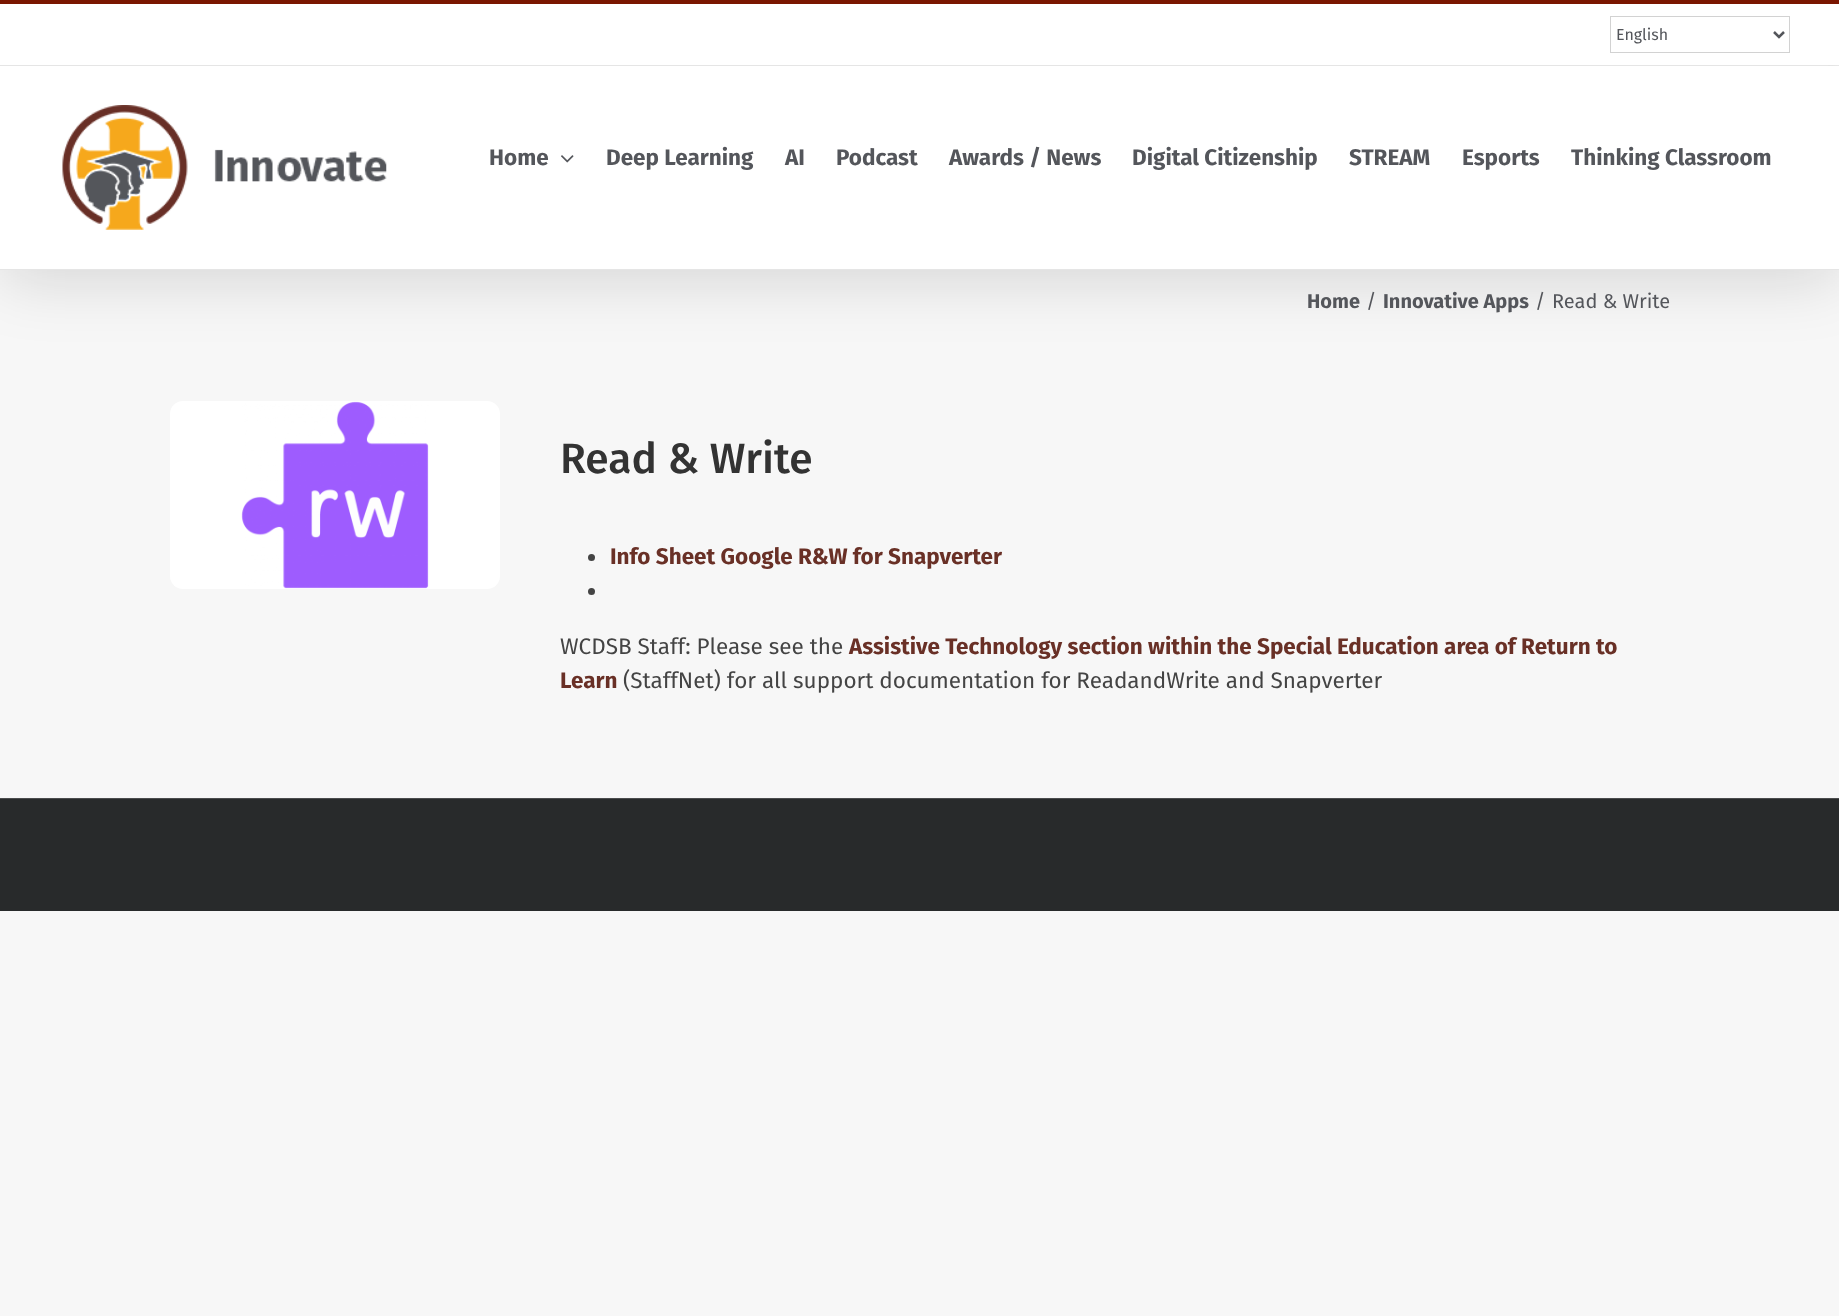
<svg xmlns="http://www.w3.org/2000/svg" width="1839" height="1316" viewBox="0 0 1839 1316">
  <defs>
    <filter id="blur1" x="-50%" y="-200%" width="200%" height="500%"><feGaussianBlur stdDeviation="31"/></filter>
  </defs>
  <rect width="100%" height="100%" fill="#f7f7f7"/>
  <rect x="3" y="15" width="1835" height="265" fill="#000000" fill-opacity="0.14" filter="url(#blur1)"/>
  <rect x="0" y="4" width="1839" height="61" fill="#ffffff"/>
  <rect x="0" y="0" width="1839" height="4" fill="#7a1600"/>
  <rect x="0" y="65" width="1828" height="1" fill="#e5e5e5"/>
  <rect x="1610.5" y="16.5" width="179" height="36" fill="none" stroke="#d2d2d2"/>
  <path d="M1774 32L1779 37L1784 32" fill="none" stroke="#54565b" stroke-width="2.5"/>
  <text x="1616" y="40" font-family="Fira Sans" font-size="16" fill="#54565b">English</text>
  <rect x="0" y="66" width="1839" height="203" fill="#ffffff"/>
  <rect x="0" y="269" width="1839" height="1" fill="#e5e5e5"/>
  <image x="62" y="105" width="325" height="125" href="img1.png"/>
  <text x="489" y="165" font-family="Fira Sans" font-size="22.5" font-weight="bold" fill="#54565b">Home</text>
  <image x="561" y="155" width="13" height="8" href="img2.png"/>
  <text x="606" y="165" font-family="Fira Sans" font-size="22.5" font-weight="bold" fill="#54565b">Deep Learning</text>
  <text x="785" y="165" font-family="Fira Sans" font-size="22.5" font-weight="bold" fill="#54565b">AI</text>
  <text x="836" y="165" font-family="Fira Sans" font-size="22.5" font-weight="bold" fill="#54565b">Podcast</text>
  <text x="949" y="165" font-family="Fira Sans" font-size="22.5" font-weight="bold" fill="#54565b">Awards / News</text>
  <text x="1132" y="165" font-family="Fira Sans" font-size="22.5" font-weight="bold" fill="#54565b">Digital Citizenship</text>
  <text x="1349" y="165" font-family="Fira Sans" font-size="22.5" font-weight="bold" fill="#54565b">STREAM</text>
  <text x="1462" y="165" font-family="Fira Sans" font-size="22.5" font-weight="bold" fill="#54565b">Esports</text>
  <text x="1571" y="165" font-family="Fira Sans" font-size="22.5" font-weight="bold" fill="#54565b">Thinking Classroom</text>
  <text x="1307" y="308" font-family="Fira Sans" font-size="20" font-weight="bold" fill="#54565b">Home</text>
  <text x="1366" y="308" font-family="Fira Sans" font-size="20" fill="#54565b">/</text>
  <text x="1383" y="308" font-family="Fira Sans" font-size="20" font-weight="bold" fill="#54565b">Innovative Apps</text>
  <text x="1535" y="308" font-family="Fira Sans" font-size="20" fill="#54565b">/</text>
  <text x="1552" y="308" font-family="Fira Sans" font-size="20" fill="#54565b">Read &amp; Write</text>
  <rect x="170" y="401" width="330" height="188" rx="13" fill="#ffffff"/>
  <image x="241" y="401" width="188" height="188" href="img3.png"/>
  <text x="560" y="473" font-family="Fira Sans" font-size="42.5" font-weight="500" fill="#333333">Read &amp; Write</text>
  <circle cx="591.5" cy="557.5" r="3.5" fill="#444444"/>
  <text x="610" y="564" font-family="Fira Sans" font-size="22.5" font-weight="bold" fill="#693026">Info Sheet Google R&amp;W for Snapverter</text>
  <circle cx="591.5" cy="591.5" r="3.5" fill="#444444"/>
  <text x="560" y="654" font-family="Fira Sans" font-size="22.5" fill="#444444">WCDSB Staff: Please see the</text>
  <text x="849" y="654" font-family="Fira Sans" font-size="22.5" font-weight="bold" fill="#693026">Assistive Technology section within the Special Education area of Return to</text>
  <text x="560" y="688" font-family="Fira Sans" font-size="22.5" font-weight="bold" fill="#693026">Learn</text>
  <text x="623" y="688" font-family="Fira Sans" font-size="22.5" fill="#444444">(StaffNet) for all support documentation for ReadandWrite and Snapverter</text>
  <rect x="0" y="799" width="1839" height="112" fill="#282a2b"/>
  <rect x="0" y="798" width="1839" height="1" fill="#4b4c4d"/>
</svg>
